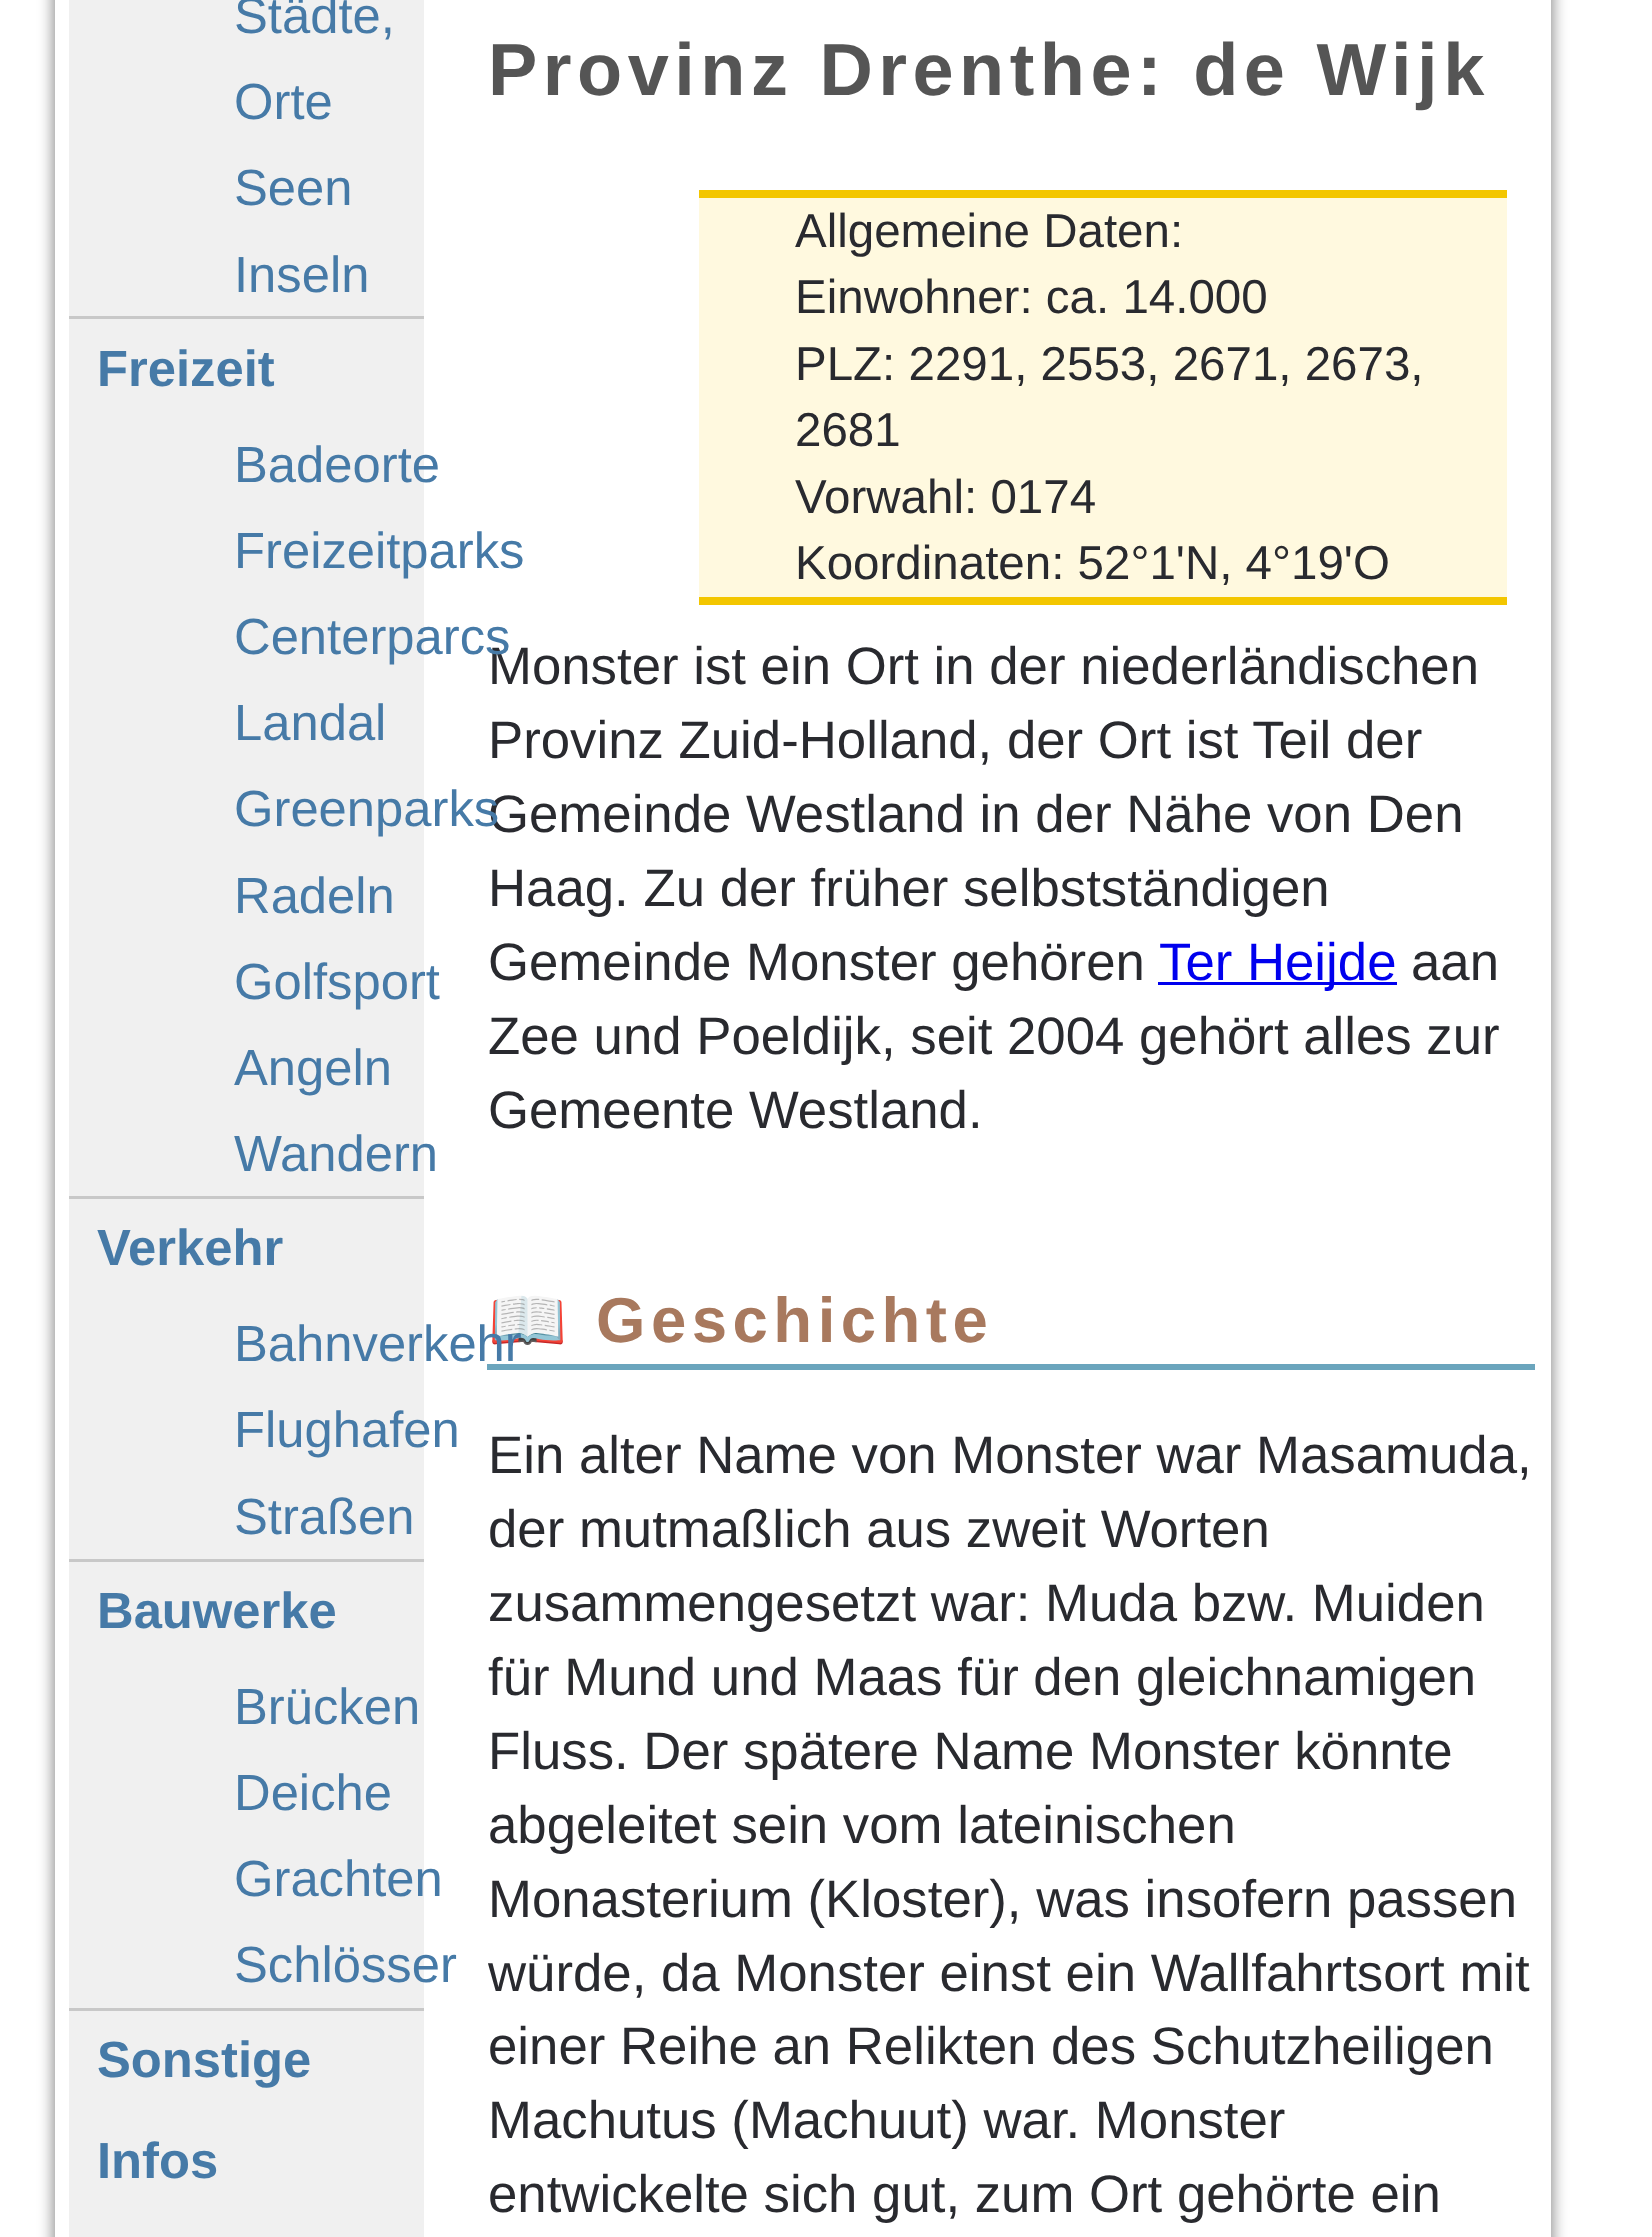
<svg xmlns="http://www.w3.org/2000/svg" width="1652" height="2237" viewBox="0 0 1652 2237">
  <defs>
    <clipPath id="clip1"><path d="M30 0H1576V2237H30ZM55-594H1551V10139H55Z" clip-rule="evenodd"/></clipPath>
    <filter id="blur1" x="-50%" y="-200%" width="200%" height="500%"><feGaussianBlur stdDeviation="7"/></filter>
  </defs>
  <rect width="100%" height="100%" fill="#ffffff"/>
  <g clip-path="url(#clip1)">
    <rect x="52" y="-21" width="1502" height="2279" fill="#999999" filter="url(#blur1)"/>
  </g>
  <rect x="69" y="0" width="355" height="2237" fill="#f0f0f0"/>
  <text x="234" y="33" font-family="Liberation Sans" font-size="50.75" fill="#467aa7">Städte,</text>
  <text x="234" y="119" font-family="Liberation Sans" font-size="50.75" fill="#467aa7">Orte</text>
  <text x="234" y="205" font-family="Liberation Sans" font-size="50.75" fill="#467aa7">Seen</text>
  <text x="234" y="292" font-family="Liberation Sans" font-size="50.75" fill="#467aa7">Inseln</text>
  <rect x="69" y="316" width="355" height="3" fill="#c8c8c8"/>
  <text x="97" y="386" font-family="Liberation Sans" font-size="50.75" font-weight="bold" fill="#467aa7">Freizeit</text>
  <text x="234" y="482" font-family="Liberation Sans" font-size="50.75" fill="#467aa7">Badeorte</text>
  <text x="234" y="568" font-family="Liberation Sans" font-size="50.75" fill="#467aa7">Freizeitparks</text>
  <text x="488" y="684" font-family="Liberation Sans" font-size="52.75" fill="#292a2f">Monster ist ein Ort in der niederländischen</text>
  <text x="234" y="654" font-family="Liberation Sans" font-size="50.75" fill="#467aa7">Centerparcs</text>
  <text x="234" y="740" font-family="Liberation Sans" font-size="50.75" fill="#467aa7">Landal</text>
  <text x="488" y="832" font-family="Liberation Sans" font-size="52.75" fill="#292a2f">Gemeinde Westland in der Nähe von Den</text>
  <text x="234" y="826" font-family="Liberation Sans" font-size="50.75" fill="#467aa7">Greenparks</text>
  <text x="234" y="913" font-family="Liberation Sans" font-size="50.75" fill="#467aa7">Radeln</text>
  <text x="234" y="999" font-family="Liberation Sans" font-size="50.75" fill="#467aa7">Golfsport</text>
  <text x="234" y="1085" font-family="Liberation Sans" font-size="50.75" fill="#467aa7">Angeln</text>
  <text x="234" y="1171" font-family="Liberation Sans" font-size="50.75" fill="#467aa7">Wandern</text>
  <rect x="69" y="1196" width="355" height="3" fill="#c8c8c8"/>
  <text x="97" y="1265" font-family="Liberation Sans" font-size="50.75" font-weight="bold" fill="#467aa7">Verkehr</text>
  <text x="488" y="1342" font-family="Noto Color Emoji" font-size="63.5" font-weight="bold" letter-spacing="5.5" fill="#a8795e">📖</text>
  <text x="234" y="1361" font-family="Liberation Sans" font-size="50.75" fill="#467aa7">Bahnverkehr</text>
  <text x="234" y="1447" font-family="Liberation Sans" font-size="50.75" fill="#467aa7">Flughafen</text>
  <text x="234" y="1534" font-family="Liberation Sans" font-size="50.75" fill="#467aa7">Straßen</text>
  <rect x="69" y="1559" width="355" height="3" fill="#c8c8c8"/>
  <text x="97" y="1628" font-family="Liberation Sans" font-size="50.75" font-weight="bold" fill="#467aa7">Bauwerke</text>
  <text x="234" y="1724" font-family="Liberation Sans" font-size="50.75" fill="#467aa7">Brücken</text>
  <text x="234" y="1810" font-family="Liberation Sans" font-size="50.75" fill="#467aa7">Deiche</text>
  <text x="234" y="1896" font-family="Liberation Sans" font-size="50.75" fill="#467aa7">Grachten</text>
  <text x="234" y="1982" font-family="Liberation Sans" font-size="50.75" fill="#467aa7">Schlösser</text>
  <rect x="69" y="2008" width="355" height="3" fill="#c8c8c8"/>
  <text x="97" y="2077" font-family="Liberation Sans" font-size="50.75" font-weight="bold" fill="#467aa7">Sonstige</text>
  <text x="97" y="2178" font-family="Liberation Sans" font-size="50.75" font-weight="bold" fill="#467aa7">Infos</text>
  <text x="488" y="95" font-family="Liberation Sans" font-size="73.9" font-weight="bold" letter-spacing="5.5" fill="#555555">Provinz Drenthe: de Wijk</text>
  <rect x="699" y="198" width="808" height="399" fill="#fff9df"/>
  <rect x="699" y="190" width="808" height="8" fill="#f3c600"/>
  <rect x="699" y="597" width="808" height="8" fill="#f3c600"/>
  <text x="795" y="247" font-family="Liberation Sans" font-size="47.5" fill="#292a2f">Allgemeine Daten:</text>
  <text x="795" y="313" font-family="Liberation Sans" font-size="47.5" fill="#292a2f">Einwohner: ca. 14.000</text>
  <text x="795" y="380" font-family="Liberation Sans" font-size="47.5" fill="#292a2f">PLZ: 2291, 2553, 2671, 2673,</text>
  <text x="795" y="446" font-family="Liberation Sans" font-size="47.5" fill="#292a2f">2681</text>
  <text x="795" y="513" font-family="Liberation Sans" font-size="47.5" fill="#292a2f">Vorwahl: 0174</text>
  <text x="795" y="579" font-family="Liberation Sans" font-size="47.5" fill="#292a2f">Koordinaten: 52°1'N, 4°19'O</text>
  <text x="488" y="758" font-family="Liberation Sans" font-size="52.75" fill="#292a2f">Provinz Zuid-Holland, der Ort ist Teil der</text>
  <text x="488" y="906" font-family="Liberation Sans" font-size="52.75" fill="#292a2f">Haag. Zu der früher selbstständigen</text>
  <text x="488" y="980" font-family="Liberation Sans" font-size="52.75" fill="#292a2f">Gemeinde Monster gehören</text>
  <rect x="1158" y="982" width="239" height="3" fill="#0000ee"/>
  <text x="1159" y="980" font-family="Liberation Sans" font-size="52.75" fill="#0000ee">Ter Heijde</text>
  <text x="1411" y="980" font-family="Liberation Sans" font-size="52.75" fill="#292a2f">aan</text>
  <text x="488" y="1054" font-family="Liberation Sans" font-size="52.75" fill="#292a2f">Zee und Poeldijk, seit 2004 gehört alles zur</text>
  <text x="488" y="1128" font-family="Liberation Sans" font-size="52.75" fill="#292a2f">Gemeente Westland.</text>
  <rect x="487" y="1364" width="1048" height="6" fill="#6ba5bd"/>
  <text x="596" y="1342" font-family="Liberation Sans" font-size="63.5" font-weight="bold" letter-spacing="5.5" fill="#a8795e">Geschichte</text>
  <text x="488" y="1473" font-family="Liberation Sans" font-size="52.75" fill="#292a2f">Ein alter Name von Monster war Masamuda,</text>
  <text x="488" y="1547" font-family="Liberation Sans" font-size="52.75" fill="#292a2f">der mutmaßlich aus zweit Worten</text>
  <text x="488" y="1621" font-family="Liberation Sans" font-size="52.75" fill="#292a2f">zusammengesetzt war: Muda bzw. Muiden</text>
  <text x="488" y="1695" font-family="Liberation Sans" font-size="52.75" fill="#292a2f">für Mund und Maas für den gleichnamigen</text>
  <text x="488" y="1769" font-family="Liberation Sans" font-size="52.75" fill="#292a2f">Fluss. Der spätere Name Monster könnte</text>
  <text x="488" y="1843" font-family="Liberation Sans" font-size="52.75" fill="#292a2f">abgeleitet sein vom lateinischen</text>
  <text x="488" y="1917" font-family="Liberation Sans" font-size="52.75" fill="#292a2f">Monasterium (Kloster), was insofern passen</text>
  <text x="488" y="1991" font-family="Liberation Sans" font-size="52.75" fill="#292a2f">würde, da Monster einst ein Wallfahrtsort mit</text>
  <text x="488" y="2064" font-family="Liberation Sans" font-size="52.75" fill="#292a2f">einer Reihe an Relikten des Schutzheiligen</text>
  <text x="488" y="2138" font-family="Liberation Sans" font-size="52.75" fill="#292a2f">Machutus (Machuut) war. Monster</text>
  <text x="488" y="2212" font-family="Liberation Sans" font-size="52.75" fill="#292a2f">entwickelte sich gut, zum Ort gehörte ein</text>
</svg>
